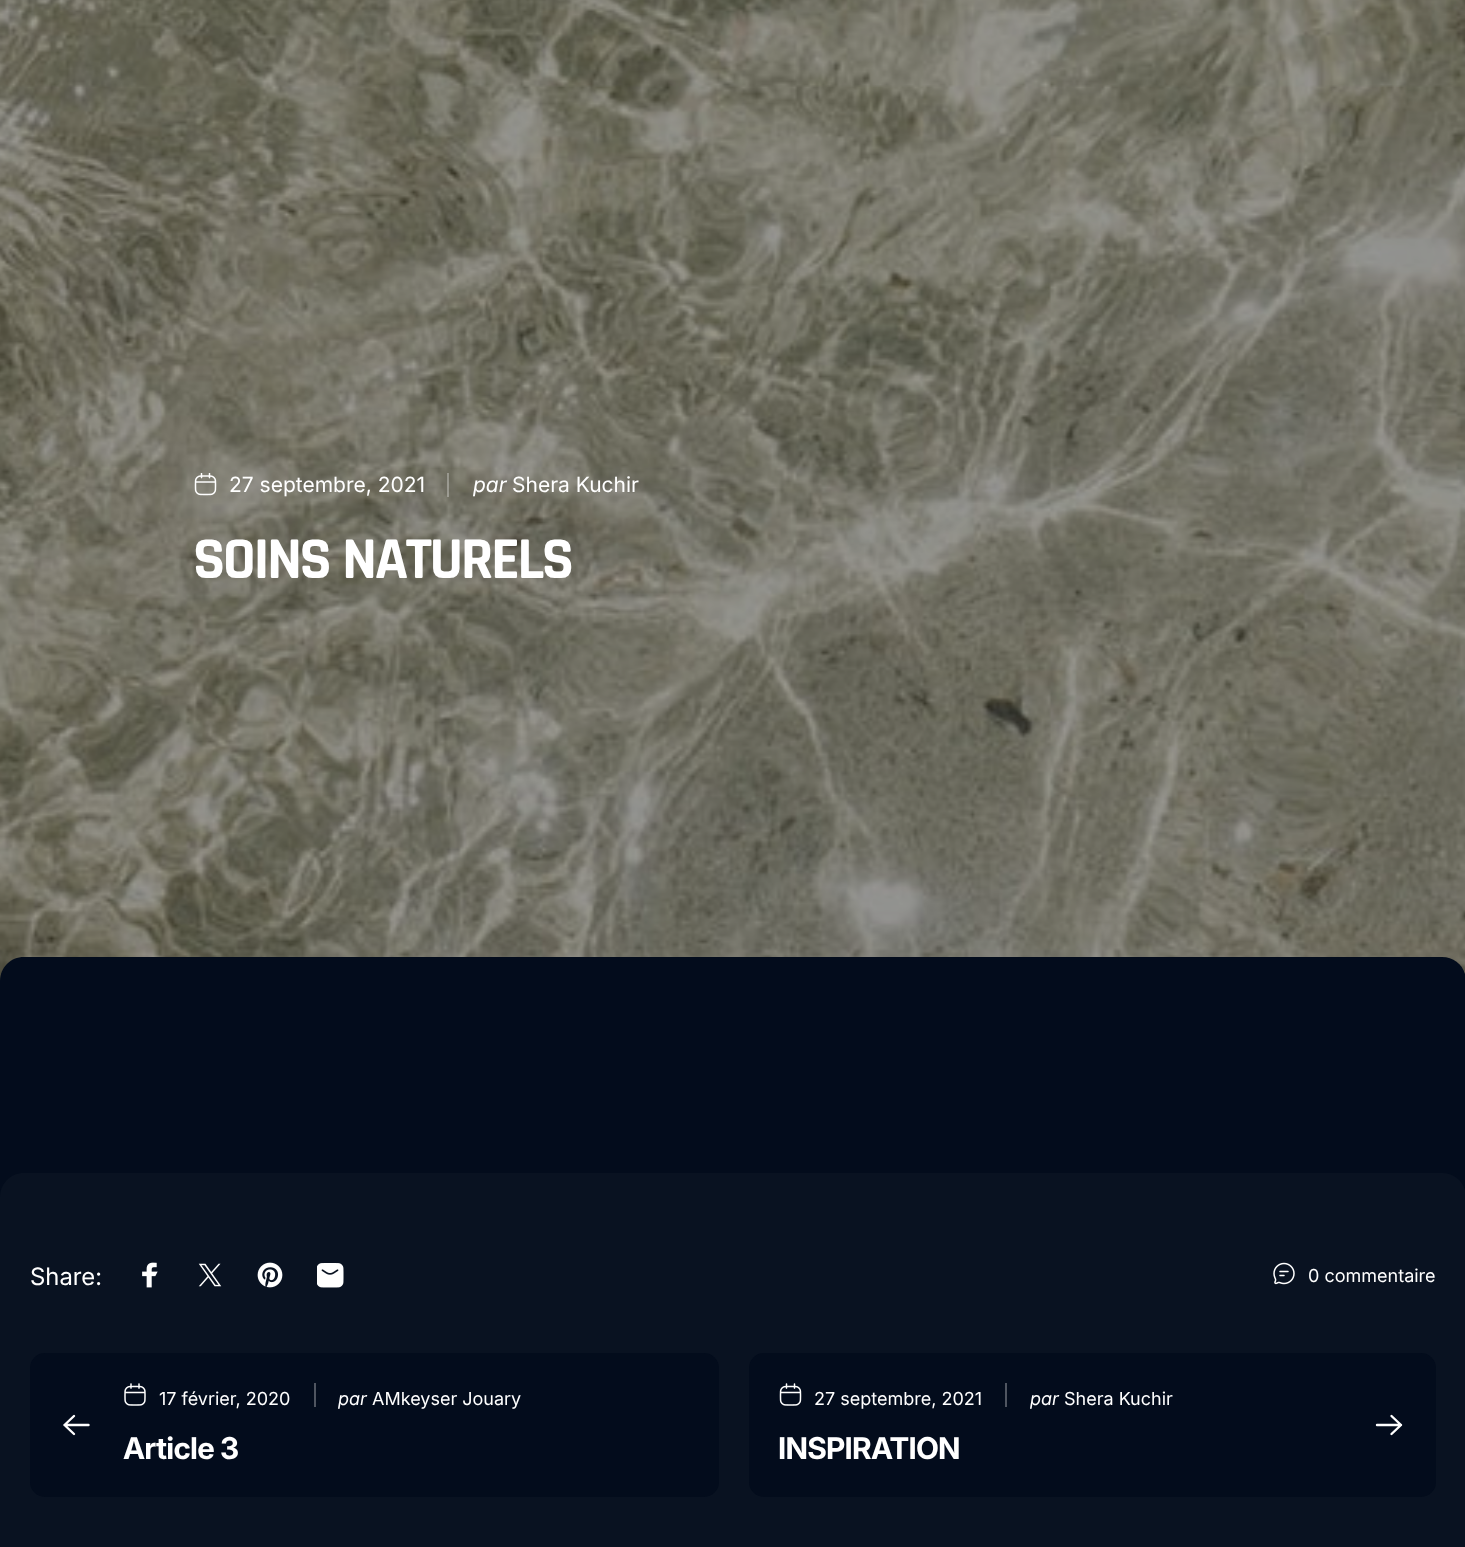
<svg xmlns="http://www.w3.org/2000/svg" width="1465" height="1547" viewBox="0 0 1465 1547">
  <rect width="100%" height="100%" fill="#ffffff"/>
  <image x="0" y="0" width="1465" height="981" href="img1.png"/>
  <image x="194" y="473" width="23" height="23" href="img2.png"/>
  <text x="229" y="492" font-family="'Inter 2'" font-size="21" fill="#ffffff">27 septembre, 2021</text>
  <rect x="447" y="473" width="2" height="24" fill="#ffffff" fill-opacity="0.3"/>
  <text x="473" y="492" font-family="Inter" font-size="21" font-style="italic" fill="#ffffff">par</text>
  <text x="512" y="492" font-family="'Inter 2'" font-size="21" fill="#ffffff">Shera Kuchir</text>
  <text x="193" y="578" font-family="Rajdhani" font-size="60" font-weight="bold" letter-spacing="-2.5" fill="#ffffff">SOINS</text>
  <text x="342" y="578" font-family="Rajdhani" font-size="60" font-weight="bold" letter-spacing="-2.5" fill="#ffffff">NATURELS</text>
  <path d="M24 957H1442C1455.5 957 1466 967.5 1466 981V1197H0V981C0 967.5 10.5 957 24 957Z" fill="#030c1c"/>
  <path d="M24 1173H1442C1455.5 1173 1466 1183.5 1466 1197V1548H0V1197C0 1183.5 10.5 1173 24 1173Z" fill="#091221"/>
  <text x="30" y="1285" font-family="Inter" font-size="24" fill="#ffffff">Share:</text>
  <image x="142" y="1262" width="16" height="26" href="img3.png"/>
  <image x="198" y="1263" width="24" height="24" href="img4.png"/>
  <image x="257" y="1262" width="26" height="26" href="img5.png"/>
  <image x="317" y="1263" width="27" height="25" href="img6.png"/>
  <image x="1273" y="1262" width="22" height="23" href="img7.png"/>
  <text x="1308" y="1282" font-family="'Inter 2'" font-size="18" fill="#ffffff">0 commentaire</text>
  <rect x="30" y="1353" width="689" height="144" rx="15" fill="#030c1c"/>
  <path d="M88.5 1425H64.5M64.5 1425L74 1434M64.5 1425L74 1416" fill="none" stroke="#ffffff" stroke-width="2.4" stroke-linecap="round" stroke-linejoin="round"/>
  <image x="124" y="1383" width="22" height="23" href="img8.png"/>
  <text x="159" y="1405" font-family="'Inter 2'" font-size="18" fill="#ffffff">17 février, 2020</text>
  <rect x="314" y="1383" width="2" height="24" fill="#4f5560"/>
  <text x="338" y="1405" font-family="Inter" font-size="18" font-style="italic" fill="#ffffff">par</text>
  <text x="372" y="1405" font-family="'Inter 2'" font-size="18" fill="#ffffff">AMkeyser Jouary</text>
  <text x="123" y="1459" font-family="Inter" font-size="30" font-weight="bold" letter-spacing="-0.75" fill="#ffffff">Article 3</text>
  <rect x="749" y="1353" width="687" height="144" rx="15" fill="#030c1c"/>
  <image x="779" y="1383" width="23" height="23" href="img9.png"/>
  <text x="814" y="1405" font-family="'Inter 2'" font-size="18" fill="#ffffff">27 septembre, 2021</text>
  <rect x="1005" y="1383" width="2" height="24" fill="#4f5560"/>
  <text x="1030" y="1405" font-family="Inter" font-size="18" font-style="italic" fill="#ffffff">par</text>
  <text x="1064" y="1405" font-family="'Inter 2'" font-size="18" fill="#ffffff">Shera Kuchir</text>
  <text x="778" y="1459" font-family="Inter" font-size="30" font-weight="bold" letter-spacing="-0.75" fill="#ffffff">INSPIRATION</text>
  <path d="M1377 1425H1401M1401 1425L1391.5 1416M1401 1425L1391.5 1434" fill="none" stroke="#ffffff" stroke-width="2.4" stroke-linecap="round" stroke-linejoin="round"/>
</svg>
